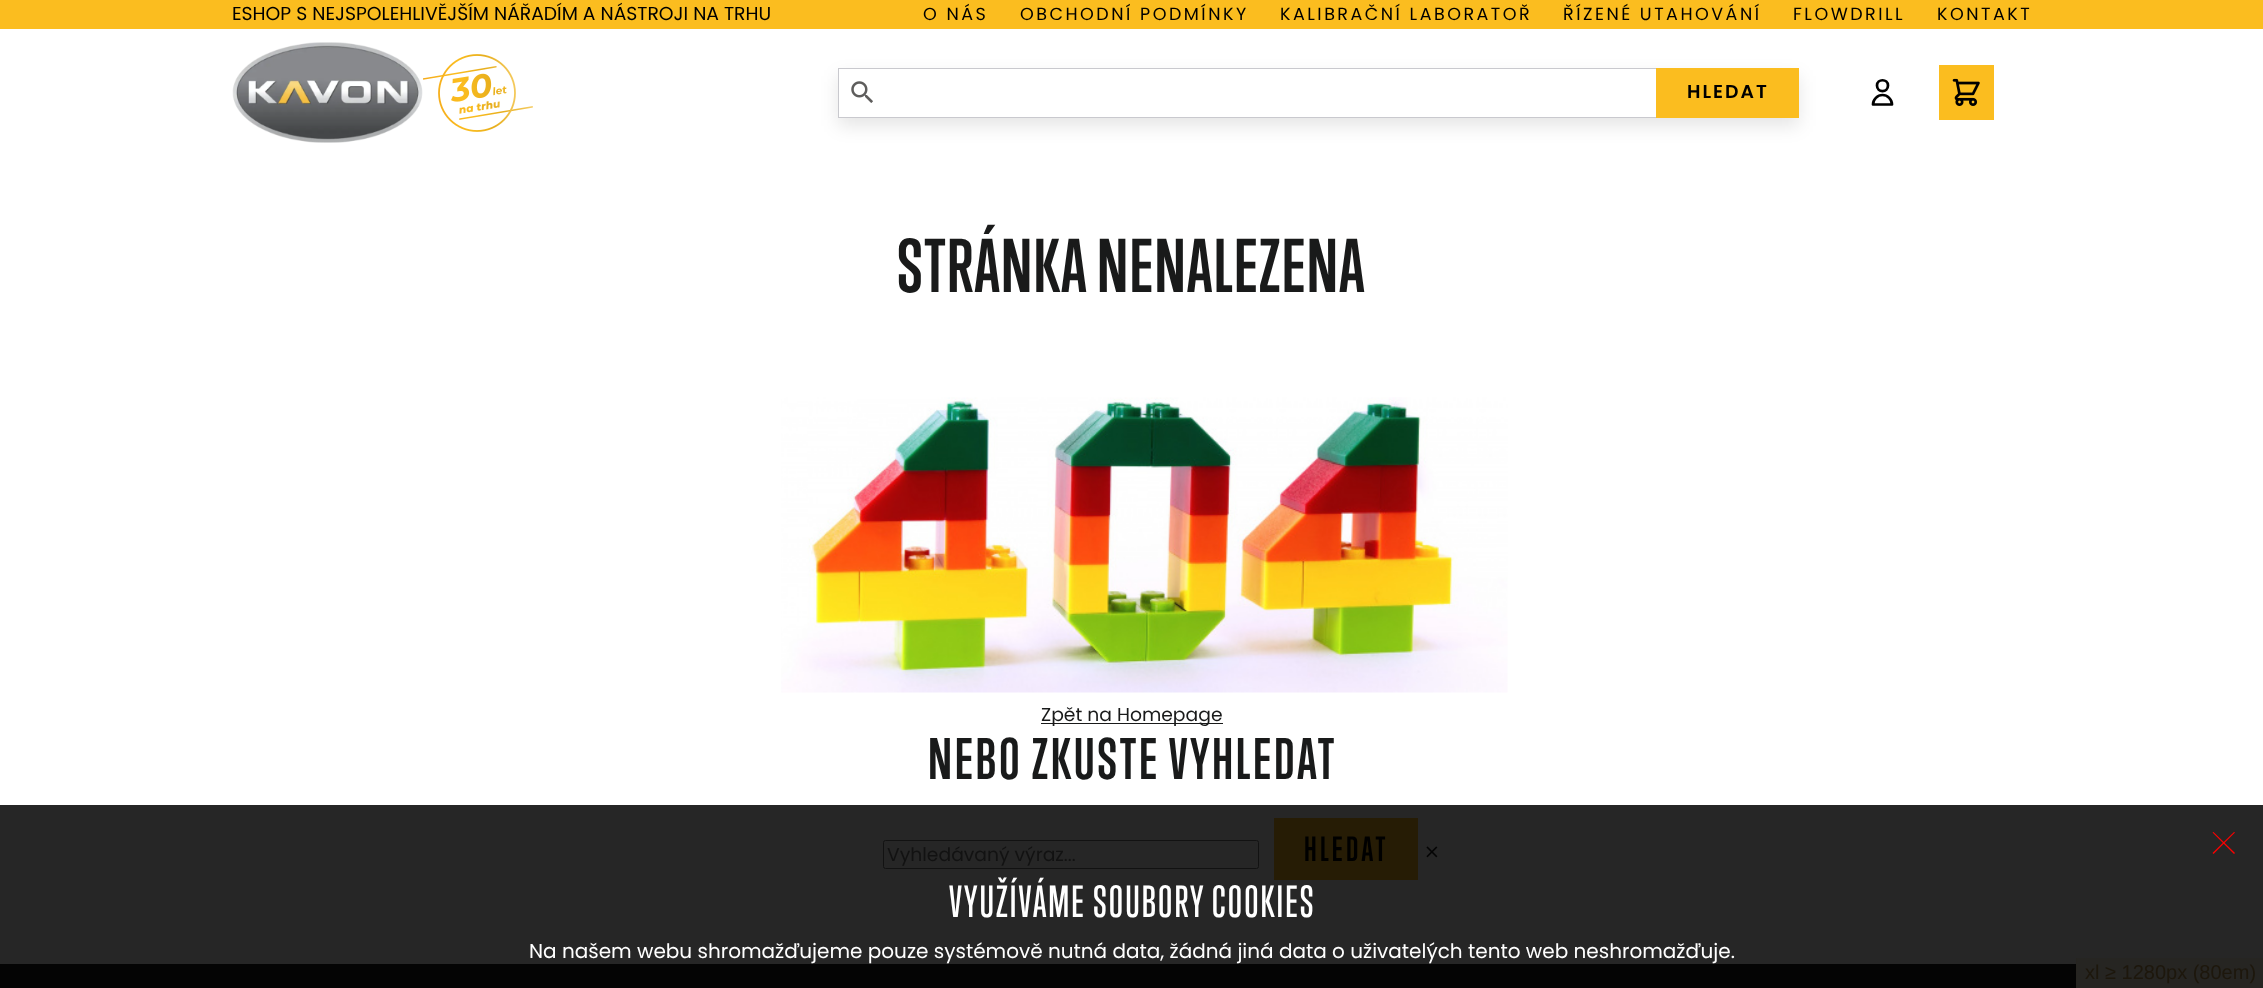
<svg xmlns="http://www.w3.org/2000/svg" width="2263" height="988" viewBox="0 0 2263 988">
  <defs>
    <filter id="blur1" x="-50%" y="-200%" width="200%" height="500%"><feGaussianBlur stdDeviation="9"/></filter>
  </defs>
  <rect width="100%" height="100%" fill="#ffffff"/>
  <rect x="0" y="805" width="2263" height="159" fill="#262626"/>
  <rect x="0" y="0" width="2263" height="29" fill="#fbbd1f"/>
  <text x="232" y="20" font-family="Poppins" font-size="18.75" fill="#000000">ESHOP S NEJSPOLEHLIVĚJŠÍM NÁŘADÍM A NÁSTROJI NA TRHU</text>
  <text x="923" y="20" font-family="Poppins" font-size="17.5" letter-spacing="2.5" fill="#000000">O NÁS</text>
  <text x="1020" y="20" font-family="Poppins" font-size="17.5" letter-spacing="2.5" fill="#000000">OBCHODNÍ PODMÍNKY</text>
  <text x="1280" y="20" font-family="Poppins" font-size="17.5" letter-spacing="2.5" fill="#000000">KALIBRAČNÍ LABORATOŘ</text>
  <text x="1563" y="20" font-family="Poppins" font-size="17.5" letter-spacing="2.5" fill="#000000">ŘÍZENÉ UTAHOVÁNÍ</text>
  <text x="1793" y="20" font-family="Poppins" font-size="17.5" letter-spacing="2.5" fill="#000000">FLOWDRILL</text>
  <text x="1937" y="20" font-family="Poppins" font-size="17.5" letter-spacing="2.5" fill="#000000">KONTAKT</text>
  <image x="232" y="42" width="191" height="101" href="img1.png"/>
  <image x="423" y="54" width="110" height="78" href="img2.png"/>
  <rect x="838" y="76" width="961" height="50" fill="#000000" fill-opacity="0.1" filter="url(#blur1)"/>
  <rect x="839" y="69" width="817" height="48" fill="#ffffff"/>
  <rect x="838.5" y="68.5" width="820" height="49" fill="none" stroke="#c9c9ce"/>
  <image x="851" y="81" width="22" height="22" href="img3.png"/>
  <rect x="1656" y="68" width="143" height="50" fill="#fbbd1f"/>
  <text x="1687" y="98" font-family="Poppins" font-size="18.75" font-weight="600" letter-spacing="2" fill="#000000">HLEDAT</text>
  <path d="M1888 85.5C1888 93 1877 93 1877 85.5C1877 78.5 1888 78.5 1888 85.5ZM1882.5 95C1877.5 95 1873 99.5 1873 104.5H1892C1892 99.5 1887.5 95 1882.5 95Z" fill="none" stroke="#000000" stroke-width="2.7" stroke-linecap="round" stroke-linejoin="round"/>
  <rect x="1939" y="65" width="55" height="55" fill="#fbbd1f"/>
  <image x="1952" y="78" width="28" height="28" href="img4.png"/>
  <text x="897" y="292" font-family="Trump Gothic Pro" font-size="69.5" font-weight="bold" letter-spacing="1.4" fill="#191a1a">STRÁNKA NENALEZENA</text>
  <image x="781" y="397" width="727" height="296" href="img5.png"/>
  <rect x="1041" y="723" width="182" height="1" fill="#191a1a"/>
  <text x="1041" y="721" font-family="Poppins" font-size="18.75" fill="#191a1a">Zpět na Homepage</text>
  <text x="928" y="779" font-family="Trump Gothic Pro" font-size="53.5" font-weight="bold" letter-spacing="2.7" fill="#191a1a">NEBO ZKUSTE VYHLEDAT</text>
  <rect x="883.5" y="840.5" width="375" height="28" rx="2" fill="none" stroke="#121212"/>
  <text x="887" y="861" font-family="Poppins" font-size="18.75" fill="#121212">Vyhledávaný výraz...</text>
  <rect x="1274" y="818" width="144" height="62" fill="#261c05"/>
  <text x="1304" y="861" font-family="Trump Gothic Pro" font-size="32" font-weight="bold" letter-spacing="3.25" fill="#000000">HLEDAT</text>
  <image x="1426" y="846" width="12" height="12" href="img6.png"/>
  <rect x="0" y="964" width="2076" height="24" fill="#040404"/>
  <path d="M2213.5 832L2235 853L2234 854L2212.5 832.5Z" fill="#ff0000"/>
  <path d="M2212.5 853L2234 832L2235 832.5L2213.5 854Z" fill="#ff0000"/>
  <text x="949" y="917" font-family="Trump Gothic Pro" font-size="41.25" font-weight="500" letter-spacing="2.05" fill="#ffffff">VYUŽÍVÁME SOUBORY COOKIES</text>
  <text x="529" y="958" font-family="Poppins" font-size="20" fill="#ffffff">Na našem webu shromažďujeme pouze systémově nutná data, žádná jiná data o uživatelých tento web neshromažďuje.</text>
  <rect x="2077" y="958" width="186" height="30" fill="#262522"/>
  <rect x="2076" y="958" width="1" height="30" fill="#262420"/>
  <text x="2085" y="979" font-family="Liberation Sans" font-size="20" fill="#1d170c">xl ≥ 1280px (80em)</text>
</svg>
